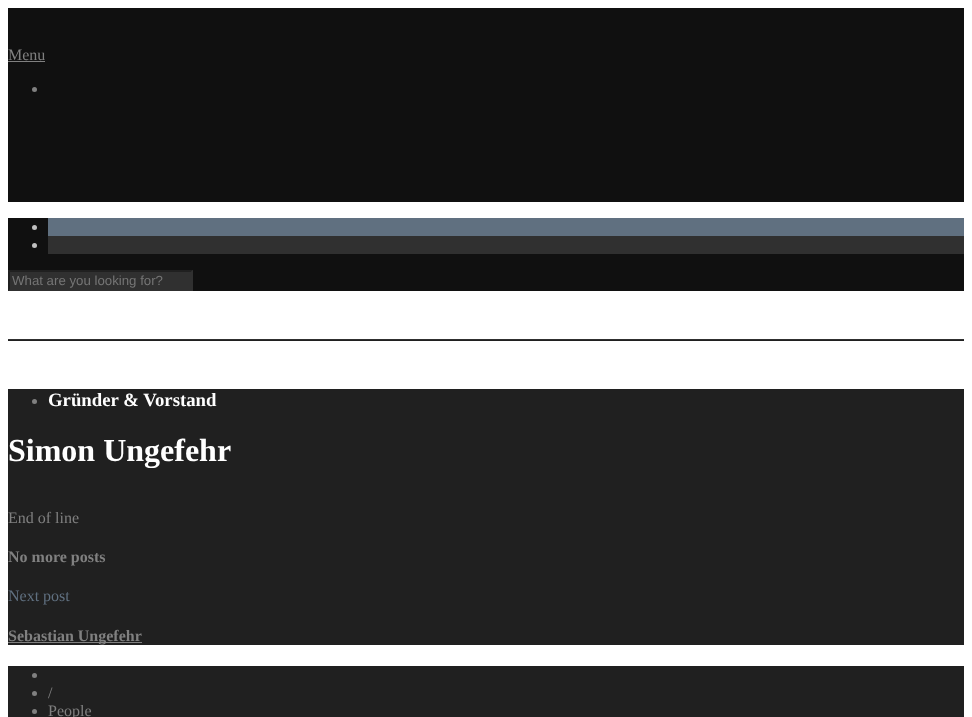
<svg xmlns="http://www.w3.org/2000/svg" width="972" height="717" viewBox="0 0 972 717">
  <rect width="100%" height="100%" fill="#ffffff"/>
  <rect x="8" y="8" width="956" height="194" fill="#101010"/>
  <text x="8" y="60" font-family="Liberation Serif" font-size="16" fill="#808080">Menu</text>
  <rect x="8" y="61" width="37" height="1" fill="#808080"/>
  <circle cx="34.5" cy="89.5" r="2.5" fill="#808080"/>
  <rect x="8" y="218" width="956" height="73" fill="#101010"/>
  <rect x="48" y="218" width="916" height="18" fill="#607080"/>
  <circle cx="34.5" cy="227.5" r="2.5" fill="#c0c0c0"/>
  <rect x="48" y="236" width="916" height="18" fill="#303030"/>
  <circle cx="34.5" cy="245.5" r="2.5" fill="#c0c0c0"/>
  <rect x="8" y="270" width="185" height="21" fill="#303030"/>
  <path d="M8 270H193L191 272H10Z" fill="#202020"/>
  <path d="M193 270V291L191 289V272Z" fill="#303030"/>
  <path d="M8 291V270L10 272V289Z" fill="#202020"/>
  <text x="12" y="285" font-family="Liberation Sans" font-size="13.25" fill="#757575">What are you looking for?</text>
  <rect x="8" y="340" width="956" height="1" fill="#202020"/>
  <rect x="8" y="339" width="956" height="1" fill="#303030"/>
  <rect x="8" y="389" width="956" height="256" fill="#202020"/>
  <circle cx="34.5" cy="401.5" r="2.5" fill="#808080"/>
  <text x="48" y="406" font-family="Liberation Serif" font-size="18.75" font-weight="bold" fill="#ffffff">Gründer &amp; Vorstand</text>
  <text x="8" y="461" font-family="Liberation Serif" font-size="32" font-weight="bold" fill="#ffffff">Simon Ungefehr</text>
  <text x="8" y="523" font-family="Liberation Serif" font-size="16" fill="#808080">End of line</text>
  <text x="8" y="562" font-family="Liberation Serif" font-size="16" font-weight="bold" fill="#808080">No more posts</text>
  <text x="8" y="601" font-family="Liberation Serif" font-size="16" fill="#607080">Next post</text>
  <rect x="8" y="642" width="134" height="1" fill="#808080"/>
  <text x="8" y="641" font-family="Liberation Serif" font-size="16" font-weight="bold" fill="#808080">Sebastian Ungefehr</text>
  <rect x="8" y="666" width="956" height="51" fill="#202020"/>
  <circle cx="34.5" cy="675.5" r="2.5" fill="#808080"/>
  <circle cx="34.5" cy="693.5" r="2.5" fill="#808080"/>
  <text x="48" y="698" font-family="Liberation Serif" font-size="16" fill="#808080">/</text>
  <circle cx="34.5" cy="711.5" r="2.5" fill="#808080"/>
  <text x="48" y="716" font-family="Liberation Serif" font-size="16" fill="#808080">People</text>
</svg>
